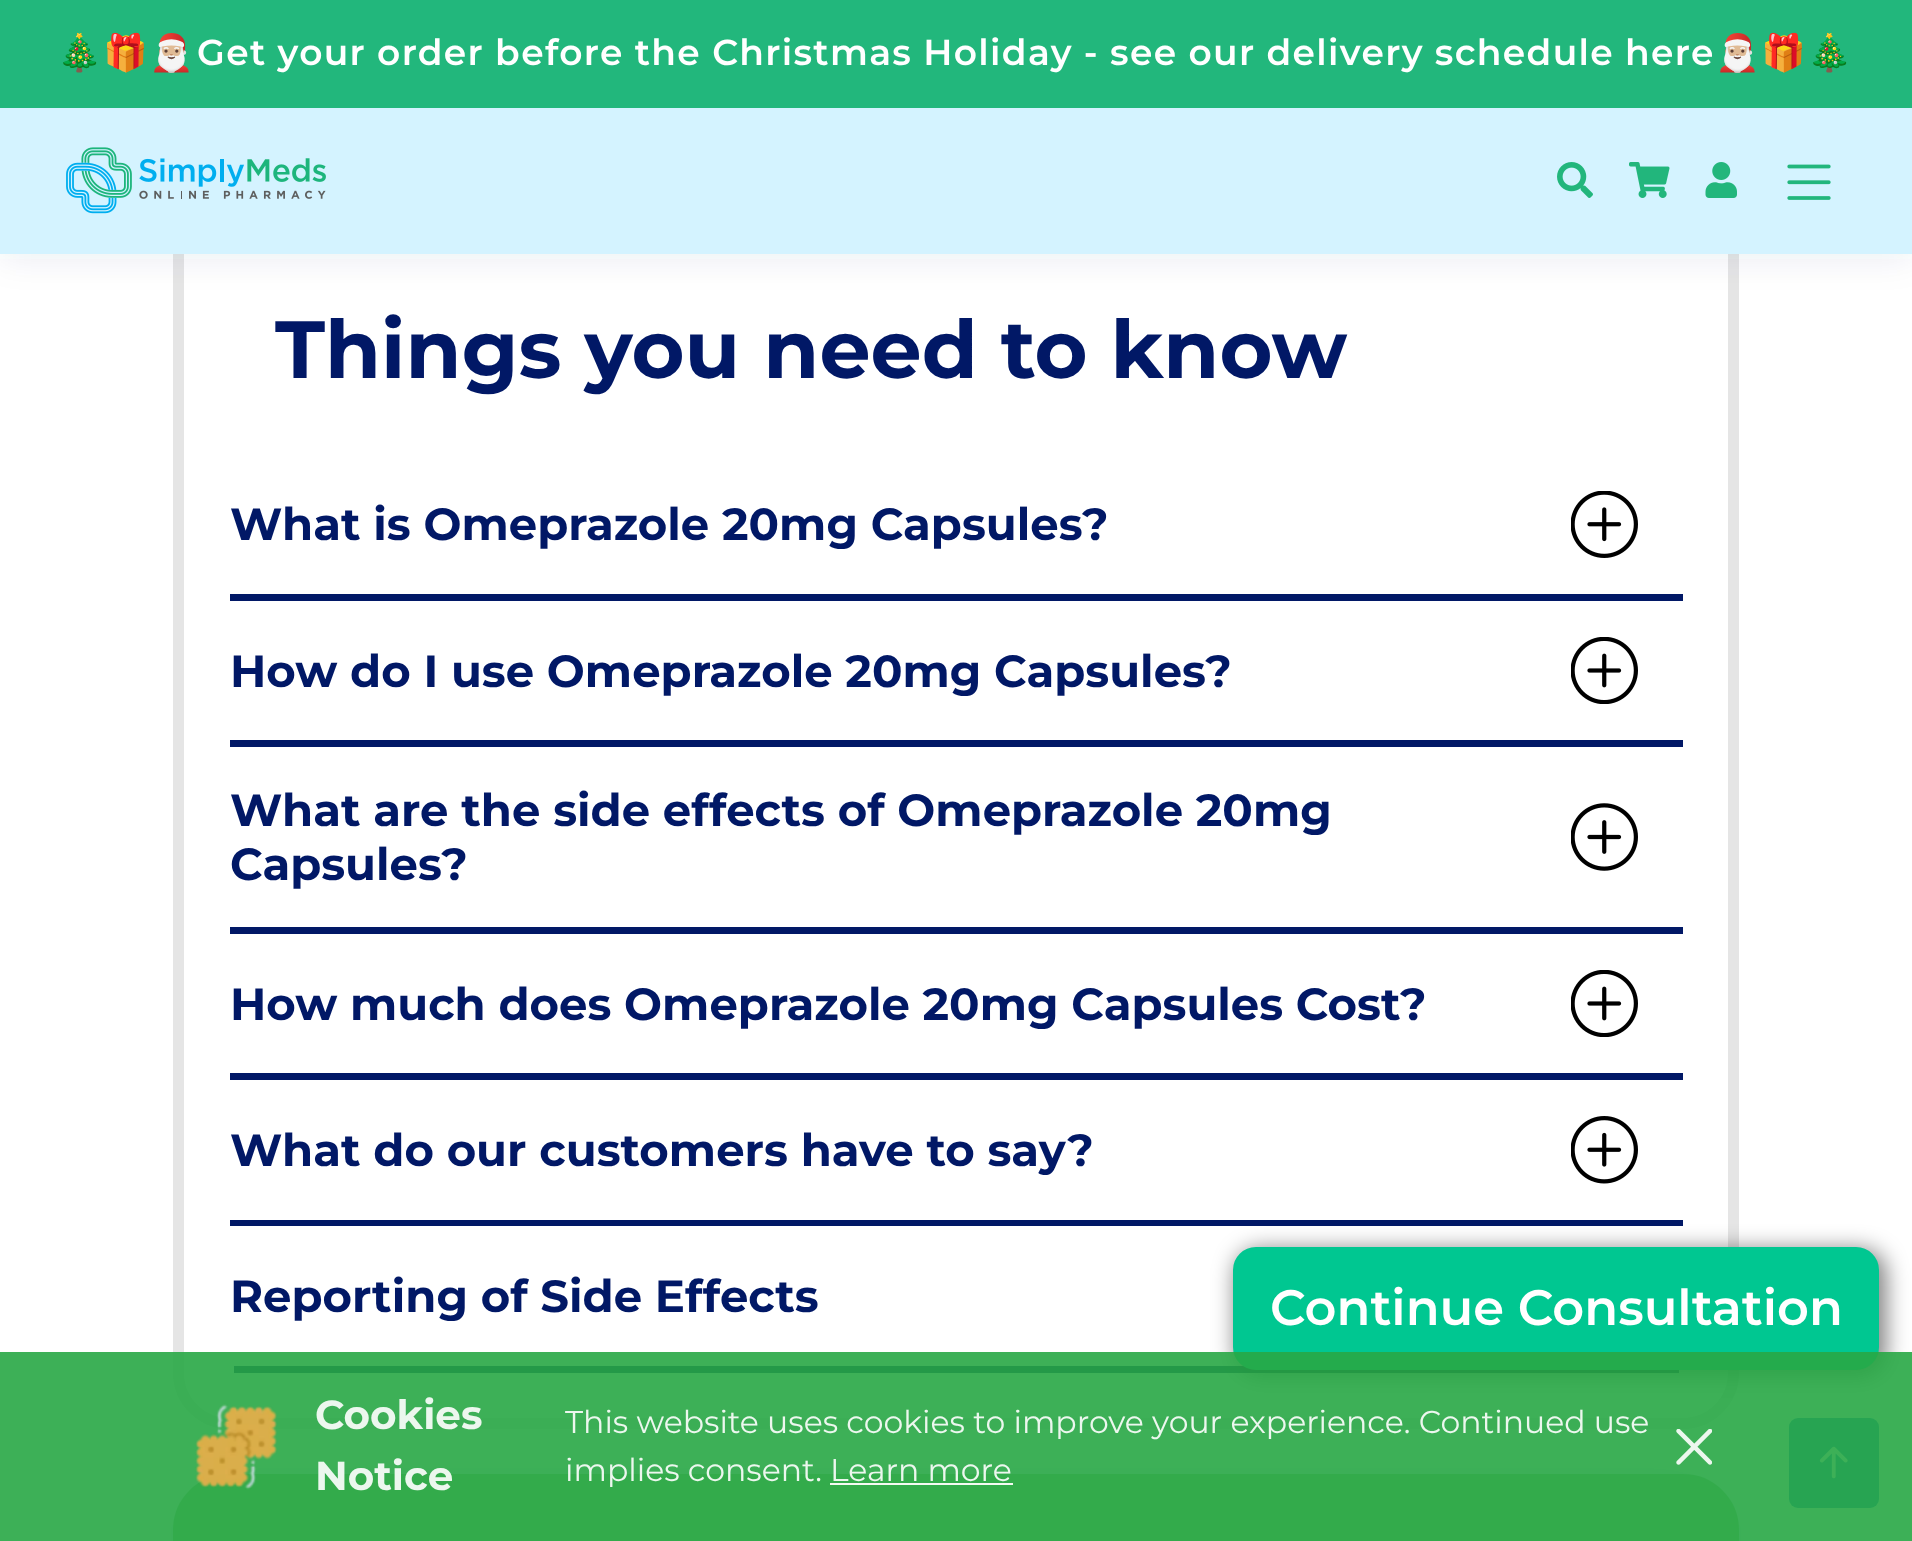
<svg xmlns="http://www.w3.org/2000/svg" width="1912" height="1541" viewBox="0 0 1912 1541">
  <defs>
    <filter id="blur1" x="-50%" y="-200%" width="200%" height="500%"><feGaussianBlur stdDeviation="17"/></filter>
    <filter id="blur2" x="-50%" y="-200%" width="200%" height="500%"><feGaussianBlur stdDeviation="11"/></filter>
    <filter id="blur3" x="-50%" y="-200%" width="200%" height="500%"><feGaussianBlur stdDeviation="32.5"/></filter>
  </defs>
  <rect width="100%" height="100%" fill="#ffffff"/>
  <rect x="178.5" y="70.5" width="1555" height="1353" rx="50.5" fill="none" stroke="#e5e5e5" stroke-width="11"/>
  <rect x="0" y="5" width="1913" height="254" fill="#124265" fill-opacity="0.08" filter="url(#blur1)"/>
  <rect x="0" y="108" width="1912" height="146" fill="#d4f3ff"/>
  <rect x="0" y="0" width="1912" height="108" fill="#22b77c"/>
  <text x="57" y="65" font-family="Noto Color Emoji" font-size="36" font-weight="bold" letter-spacing="1.35" fill="#ffffff">🎄🎁🎅🏼</text>
  <text x="197" y="65" word-spacing="-0.25" font-family="Montserrat" font-size="36" font-weight="600" letter-spacing="1.35" fill="#ffffff">Get your order before the Christmas Holiday - see our delivery schedule here</text>
  <text x="1715" y="65" font-family="Noto Color Emoji" font-size="36" font-weight="bold" letter-spacing="1.35" fill="#ffffff">🎅🏼🎁🎄</text>
  <image x="66" y="147" width="260" height="67" href="img1.png"/>
  <image x="1557" y="162" width="36" height="36" href="img2.png"/>
  <image x="1629" y="162" width="41" height="36" href="img3.png"/>
  <image x="1705" y="162" width="32" height="36" href="img4.png"/>
  <image x="1787" y="164" width="44" height="36" href="img5.png"/>
  <text x="275" y="378" font-family="Montserrat" font-size="81" font-weight="bold" fill="#011866">Things you need to know</text>
  <rect x="230" y="594" width="1453" height="7" fill="#011866"/>
  <text x="230" y="540" font-family="Montserrat" font-size="45" font-weight="bold" fill="#011866">What is Omeprazole 20mg Capsules?</text>
  <image x="1571" y="491" width="67" height="67" href="img6.png"/>
  <rect x="230" y="740" width="1453" height="7" fill="#011866"/>
  <text x="230" y="687" font-family="Montserrat" font-size="45" font-weight="bold" fill="#011866">How do I use Omeprazole 20mg Capsules?</text>
  <image x="1571" y="637" width="67" height="67" href="img7.png"/>
  <rect x="230" y="927" width="1453" height="7" fill="#011866"/>
  <text x="230" y="826" font-family="Montserrat" font-size="45" font-weight="bold" fill="#011866">What are the side effects of Omeprazole 20mg</text>
  <image x="1571" y="803" width="67" height="68" href="img8.png"/>
  <text x="230" y="880" font-family="Montserrat" font-size="45" font-weight="bold" fill="#011866">Capsules?</text>
  <rect x="230" y="1073" width="1453" height="7" fill="#011866"/>
  <text x="230" y="1020" font-family="Montserrat" font-size="45" font-weight="bold" fill="#011866">How much does Omeprazole 20mg Capsules Cost?</text>
  <image x="1571" y="970" width="67" height="67" href="img7.png"/>
  <rect x="230" y="1220" width="1453" height="6" fill="#011866"/>
  <text x="230" y="1166" font-family="Montserrat" font-size="45" font-weight="bold" fill="#011866">What do our customers have to say?</text>
  <image x="1571" y="1116" width="67" height="68" href="img9.png"/>
  <rect x="234" y="1366" width="1445" height="7" fill="#011866"/>
  <text x="230" y="1312" font-family="Montserrat" font-size="45" font-weight="bold" fill="#011866">Reporting of Side Effects</text>
  <rect x="1235" y="1249" width="651" height="128" rx="25" fill="#000000" fill-opacity="0.5" filter="url(#blur2)"/>
  <rect x="1234" y="1248" width="644" height="121" rx="22" fill="#00c791" stroke="#00c791" stroke-width="2"/>
  <text x="1270" y="1325" font-family="Montserrat" font-size="49.5" font-weight="600" fill="#ffffff">Continue Consultation</text>
  <rect x="173" y="1474" width="1566" height="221" rx="56" fill="#124265" fill-opacity="0.08" filter="url(#blur3)"/>
  <rect x="178.5" y="1479.5" width="1555" height="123" rx="50.5" fill="#99cc89" stroke="#99cc89" stroke-width="11"/>
  <rect x="1789" y="1418" width="90" height="90" rx="9" fill="#2487ce"/>
  <image x="1819" y="1446" width="29" height="33" href="img12.png"/>
  <rect x="0" y="1352" width="1912" height="189" fill="#28a745" fill-opacity="0.9"/>
  <image x="195" y="1404" width="82" height="86" href="img10.png"/>
  <text x="315" y="1429" font-family="Montserrat" font-size="40.5" font-weight="bold" fill="#ecf7ee">Cookies</text>
  <text x="315" y="1490" font-family="Montserrat" font-size="40.5" font-weight="bold" fill="#ecf7ee">Notice</text>
  <text x="565" y="1433" font-family="Montserrat" font-size="31.5" fill="#ecf7ee">This website uses cookies to improve your experience. Continued use</text>
  <text x="565" y="1481" font-family="Montserrat" font-size="31.5" fill="#ecf7ee">implies consent. Learn more</text>
  <rect x="830" y="1483" width="183" height="2" fill="#f5faf3"/>
  <image x="1676" y="1429" width="36" height="36" href="img11.png"/>
</svg>
